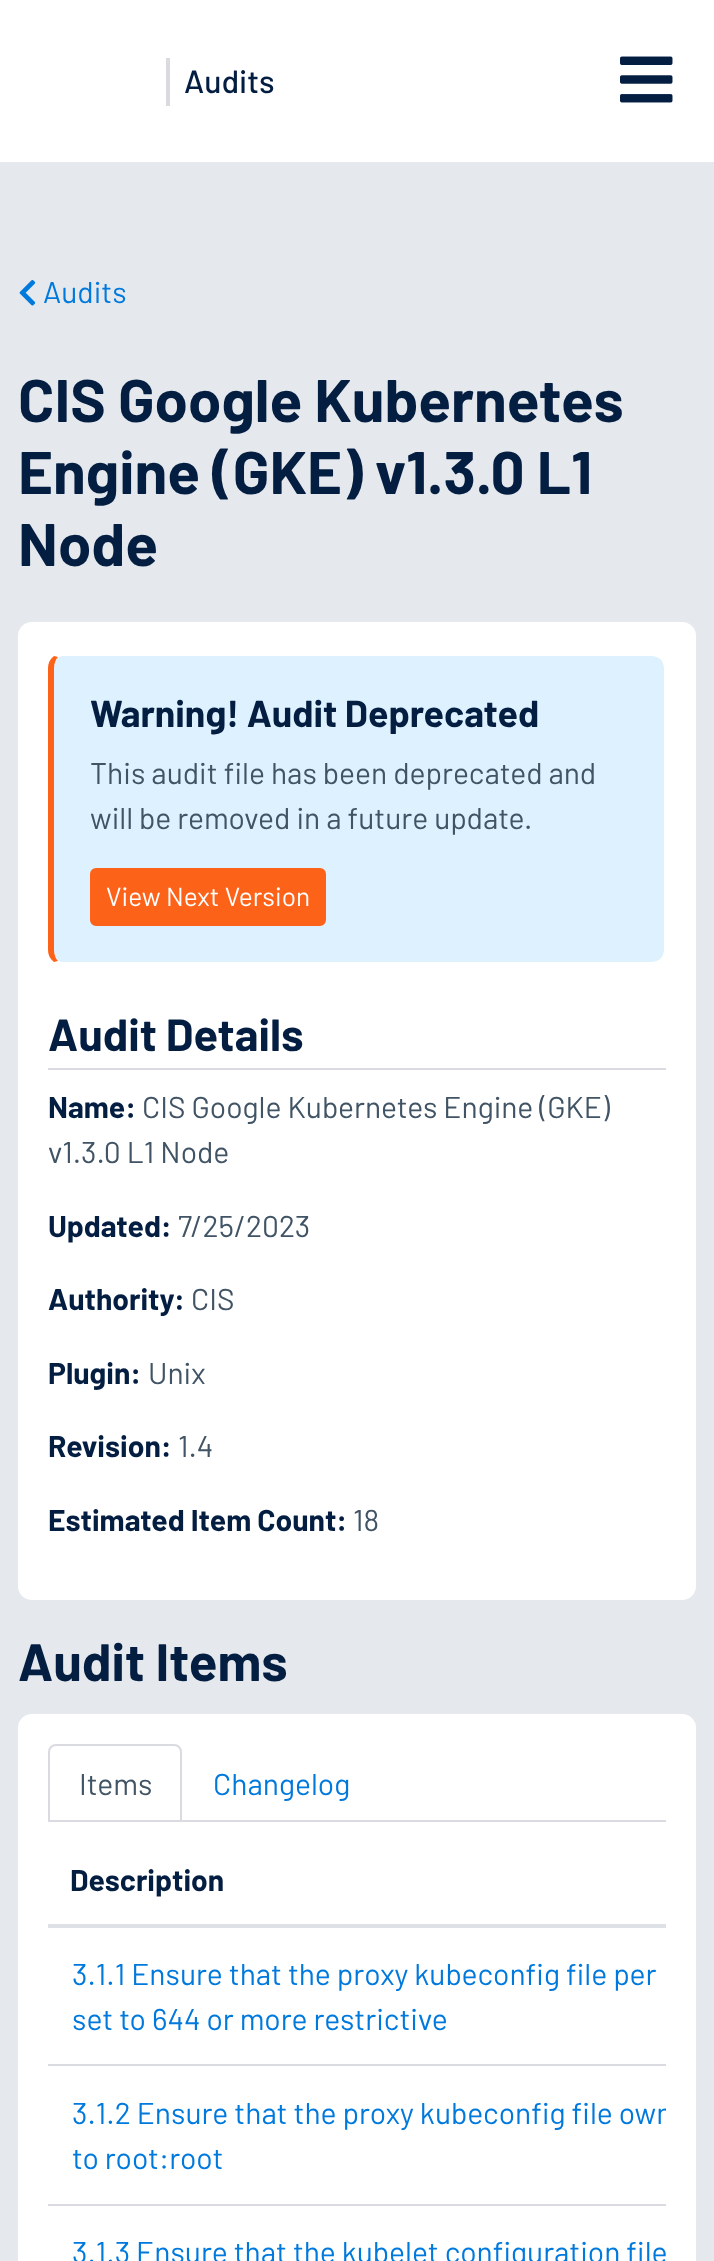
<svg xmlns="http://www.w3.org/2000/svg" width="714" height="2261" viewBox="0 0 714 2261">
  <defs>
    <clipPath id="clip1"><rect x="48" y="1836" width="618" height="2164"/></clipPath>
  </defs>
  <rect width="100%" height="100%" fill="#ffffff"/>
  <rect x="166" y="58" width="4" height="48" fill="#d9dbe0"/>
  <text x="184" y="93" font-family="Barlow" font-size="32" font-weight="500" fill="#041e42">Audits</text>
  <image x="620" y="56" width="53" height="47" href="img1.png"/>
  <rect x="0" y="162" width="714" height="2099" fill="#e5e9ed"/>
  <image x="19" y="280" width="17" height="26" href="img2.png"/>
  <text x="43" y="303" font-family="Barlow" font-size="30" fill="#0079dd">Audits</text>
  <text x="18" y="422" font-family="Barlow" font-size="60" font-weight="bold" fill="#041e42">CIS Google Kubernetes</text>
  <text x="18" y="494" font-family="Barlow" font-size="60" font-weight="bold" fill="#041e42">Engine (GKE) v1.3.0 L1</text>
  <text x="18" y="566" font-family="Barlow" font-size="60" font-weight="bold" fill="#041e42">Node</text>
  <rect x="19" y="623" width="676" height="976" rx="13" fill="#ffffff" stroke="#ffffff" stroke-width="2"/>
  <path d="M62 656H652C659 656 664 661 664 668V950C664 957 659 962 652 962H62C58 962 54 957 54 950V668C54 661 58 656 62 656Z" fill="#def1ff"/>
  <path d="M62 654C59 654 57 655 54 656L58 657L62 656H652C655 656 658 657 661 659L662 658C660 656 656 654 652 654Z" fill="#ffffff"/>
  <path d="M666 950V668C666 664 664 660 662 658L661 659C663 662 664 664 664 668V950C664 954 663 956 661 959L662 960C664 958 666 954 666 950Z" fill="#ffffff"/>
  <path d="M62 964H652C656 964 660 962 662 960L661 959C658 961 655 962 652 962H62L58 961L54 962C57 963 59 964 62 964Z" fill="#ffffff"/>
  <path d="M48 668V950C48 955 50 959 54 962L58 961C56 959 54 955 54 950V668C54 663 56 659 58 657L54 656C50 659 48 663 48 668Z" fill="#fd6219"/>
  <text x="90" y="727" font-family="Barlow" font-size="37.5" font-weight="bold" fill="#041e42">Warning! Audit Deprecated</text>
  <text x="90" y="784" font-family="Barlow" font-size="30" fill="#415465">This audit file has been deprecated and</text>
  <text x="90" y="829" font-family="Barlow" font-size="30" fill="#415465">will be removed in a future update.</text>
  <rect x="91" y="869" width="234" height="56" rx="5" fill="#fd6219" stroke="#fd6219" stroke-width="2"/>
  <text x="106" y="906" font-family="Barlow" font-size="26.25" fill="#ffffff">View Next Version</text>
  <rect x="48" y="1068" width="618" height="2" fill="#d9dbe0"/>
  <text x="48" y="1051" font-family="Barlow" font-size="45" font-weight="bold" fill="#041e42">Audit Details</text>
  <text x="48" y="1118" font-family="Barlow" font-size="30" font-weight="bold" fill="#041e42">Name:</text>
  <text x="142" y="1118" font-family="Barlow" font-size="30" fill="#415465">CIS Google Kubernetes Engine (GKE)</text>
  <text x="48" y="1163" font-family="Barlow" font-size="30" fill="#415465">v1.3.0 L1 Node</text>
  <text x="48" y="1237" font-family="Barlow" font-size="30" font-weight="bold" fill="#041e42">Updated:</text>
  <text x="178" y="1237" font-family="Barlow" font-size="30" fill="#415465">7/25/2023</text>
  <text x="48" y="1310" font-family="Barlow" font-size="30" font-weight="bold" fill="#041e42">Authority</text>
  <text x="174" y="1310" font-family="Barlow" font-size="30" font-weight="bold" fill="#041e42">:</text>
  <text x="191" y="1310" font-family="Barlow" font-size="30" fill="#415465">CIS</text>
  <text x="48" y="1384" font-family="Barlow" font-size="30" font-weight="bold" fill="#041e42">Plugin:</text>
  <text x="148" y="1384" font-family="Barlow" font-size="30" fill="#415465">Unix</text>
  <text x="48" y="1457" font-family="Barlow" font-size="30" font-weight="bold" fill="#041e42">Revision:</text>
  <text x="178" y="1457" font-family="Barlow" font-size="30" fill="#415465">1.4</text>
  <text x="48" y="1531" font-family="Barlow" font-size="30" font-weight="bold" fill="#041e42">Estimated Item Count:</text>
  <text x="353" y="1531" font-family="Barlow" font-size="30" fill="#415465">18</text>
  <text x="18" y="1681" font-family="Barlow" font-size="52.5" font-weight="bold" fill="#041e42">Audit Items</text>
  <rect x="19" y="1715" width="676" height="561" rx="13" fill="#ffffff" stroke="#ffffff" stroke-width="2"/>
  <rect x="182" y="1820" width="484" height="2" fill="#d9dbe0"/>
  <path d="M56 1745H174C178 1745 181 1748 181 1752V1821H49V1752C49 1748 52 1745 56 1745Z" fill="none" stroke="#d9dbe0" stroke-width="2"/>
  <text x="79" y="1795" font-family="Barlow" font-size="30" fill="#415465">Items</text>
  <text x="213" y="1795" font-family="Barlow" font-size="30" fill="#0079dd">Changelog</text>
  <rect x="48" y="1924" width="618" height="4" fill="#dee2e6"/>
  <text x="70" y="1891" font-family="Barlow" font-size="30" font-weight="bold" fill="#041e42">Description</text>
  <text x="72" y="1985" font-family="Barlow" font-size="30" fill="#0079dd">3.1.1 Ensure that the proxy kubeconfig file per</text>
  <text x="72" y="2030" font-family="Barlow" font-size="30" fill="#0079dd">set to 644 or more restrictive</text>
  <rect x="48" y="2064" width="618" height="2" fill="#d9dbe0"/>
  <g clip-path="url(#clip1)">
    <text x="72" y="2124" font-family="Barlow" font-size="30" fill="#0079dd">3.1.2 Ensure that the proxy kubeconfig file own</text>
  </g>
  <text x="72" y="2169" font-family="Barlow" font-size="30" fill="#0079dd">to root:root</text>
  <rect x="48" y="2204" width="618" height="2" fill="#d9dbe0"/>
  <text x="72" y="2263" font-family="Barlow" font-size="30" fill="#0079dd">3.1.3 Ensure that the kubelet configuration file</text>
</svg>
